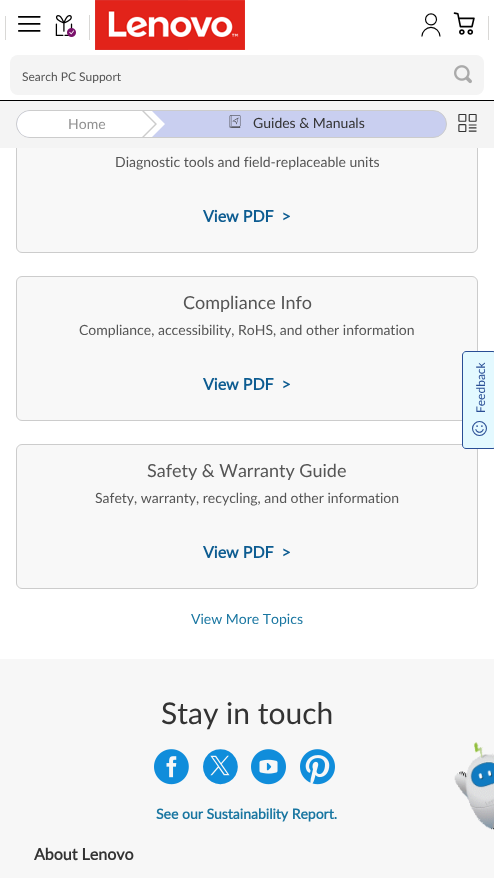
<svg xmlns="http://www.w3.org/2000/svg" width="494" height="878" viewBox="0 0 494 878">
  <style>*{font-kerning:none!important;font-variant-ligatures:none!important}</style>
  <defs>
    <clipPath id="clip1"><rect x="17" y="111" width="429" height="26" rx="13"/></clipPath>
  </defs>
  <rect width="100%" height="100%" fill="#ffffff"/>
  <rect x="0" y="100" width="494" height="1" fill="#000000"/>
  <text x="18" y="35" font-family="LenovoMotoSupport" font-size="24" fill="#000000">󡑇</text>
  <rect x="5" y="16" width="1" height="24" fill="#d9d8d6"/>
  <rect x="89" y="15" width="1" height="25" fill="#d9d8d6"/>
  <image x="55" y="15" width="21" height="22" href="img1.png"/>
  <image x="95" y="0" width="150" height="50" href="img2.png"/>
  <text x="419" y="35" font-family="LenovoMotoSupport" font-size="24" fill="#000000">󡑆</text>
  <text x="453" y="35" font-family="LenovoMotoSupport" font-size="24" fill="#000000">󡐑</text>
  <rect x="488" y="16" width="1" height="24" fill="#d9d8d6"/>
  <rect x="10" y="55" width="474" height="40" rx="8" fill="#f4f4f4"/>
  <text x="22" y="81" font-family="Lato" font-size="12" fill="#555555">Search PC Support</text>
  <image x="454" y="65" width="18" height="19" href="img3.png"/>
  <rect x="16.5" y="108.5" width="461" height="144" rx="5.5" fill="#f8f8f8" stroke="#cccccc"/>
  <rect x="0" y="101" width="494" height="47" fill="#f4f4f4"/>
  <rect x="16.5" y="110.5" width="430" height="27" rx="13.5" fill="#c9cff0" stroke="#cccccc"/>
  <g clip-path="url(#clip1)">
    <rect x="17" y="110" width="140" height="28" rx="14" fill="#ffffff"/>
  </g>
  <path d="M157 111V124H155L142 111ZM157 137H142L155 124H157Z" fill="#cccccc"/>
  <path d="M165 111V124H157L144 111ZM165 137H144L157 124H165Z" fill="#ffffff"/>
  <text x="68" y="129" font-family="Lato" font-size="14" fill="#919191">Home</text>
  <path d="M167 111V124H165L152 111ZM167 137H152L165 124H167Z" fill="#c9cff0"/>
  <text x="228" y="128" font-family="LenovoMotoSupport" font-size="14" fill="#333333">󡐉</text>
  <text x="253" y="128" font-family="Lato" font-size="14" fill="#333333">Guides &amp; Manuals</text>
  <text x="457" y="132" font-family="LenovoMotoSupport" font-size="22" fill="#333333">󡒉</text>
  <text x="115" y="167" font-family="Lato" font-size="14" fill="#555555">Diagnostic tools and field-replaceable units</text>
  <text x="203" y="222" font-family="Lato" font-size="16" font-weight="bold" fill="#0d5c91">View PDF &gt;</text>
  <rect x="16.5" y="276.5" width="461" height="144" rx="5.5" fill="#f8f8f8" stroke="#cccccc"/>
  <text x="183" y="309" font-family="Lato" font-size="18" fill="#555555">Compliance Info</text>
  <text x="79" y="335" font-family="Lato" font-size="14" fill="#555555">Compliance, accessibility, RoHS, and other information</text>
  <text x="203" y="390" font-family="Lato" font-size="16" font-weight="bold" fill="#0d5c91">View PDF &gt;</text>
  <rect x="16.5" y="444.5" width="461" height="144" rx="5.5" fill="#f8f8f8" stroke="#cccccc"/>
  <text x="147" y="477" font-family="Lato" font-size="18" fill="#555555">Safety &amp; Warranty Guide</text>
  <text x="95" y="503" font-family="Lato" font-size="14" fill="#555555">Safety, warranty, recycling, and other information</text>
  <text x="203" y="558" font-family="Lato" font-size="16" font-weight="bold" fill="#0d5c91">View PDF &gt;</text>
  <text x="191" y="624" font-family="Lato" font-size="14" fill="#1976a1">View More Topics</text>
  <path d="M462 445V355C462 353 464 351 466 351H493C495 351 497 353 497 355V445C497 447 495 449 493 449H466C464 449 462 447 462 445Z" fill="#e3f9ff"/>
  <path d="M462.5 445V355C462.5 353.5 464 351.5 466 351.5H493C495 351.5 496.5 353.5 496.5 355V445C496.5 447 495 448.5 493 448.5H466C464 448.5 462.5 447 462.5 445Z" fill="none" stroke="#294e95"/>
  <text x="485" y="413" transform="rotate(-90 485 413)" font-family="Lato" font-size="12" fill="#294e95">Feedback</text>
  <text x="472" y="436" font-family="LenovoMotoSupport" font-size="16" fill="#294e95">󡉵</text>
  <rect x="0" y="659" width="494" height="219" fill="#f7f7f7"/>
  <text x="161" y="724" font-family="Lato" font-size="30" fill="#333333">Stay in touch</text>
  <image x="154" y="749" width="35" height="36" href="img4.png"/>
  <text x="203" y="782" font-family="LenovoMotoSupport" font-size="35" fill="#108ddb">󡔖</text>
  <image x="251" y="749" width="35" height="36" href="img5.png"/>
  <image x="300" y="749" width="35" height="36" href="img6.png"/>
  <text x="156" y="819" font-family="Lato" font-size="14" font-weight="bold" fill="#1976a1">See our Sustainability Report.</text>
  <text x="34" y="860" font-family="Lato" font-size="16" font-weight="bold" fill="#333333">About Lenovo</text>
  <image x="454" y="742" width="40" height="88" href="img7.png"/>
</svg>
